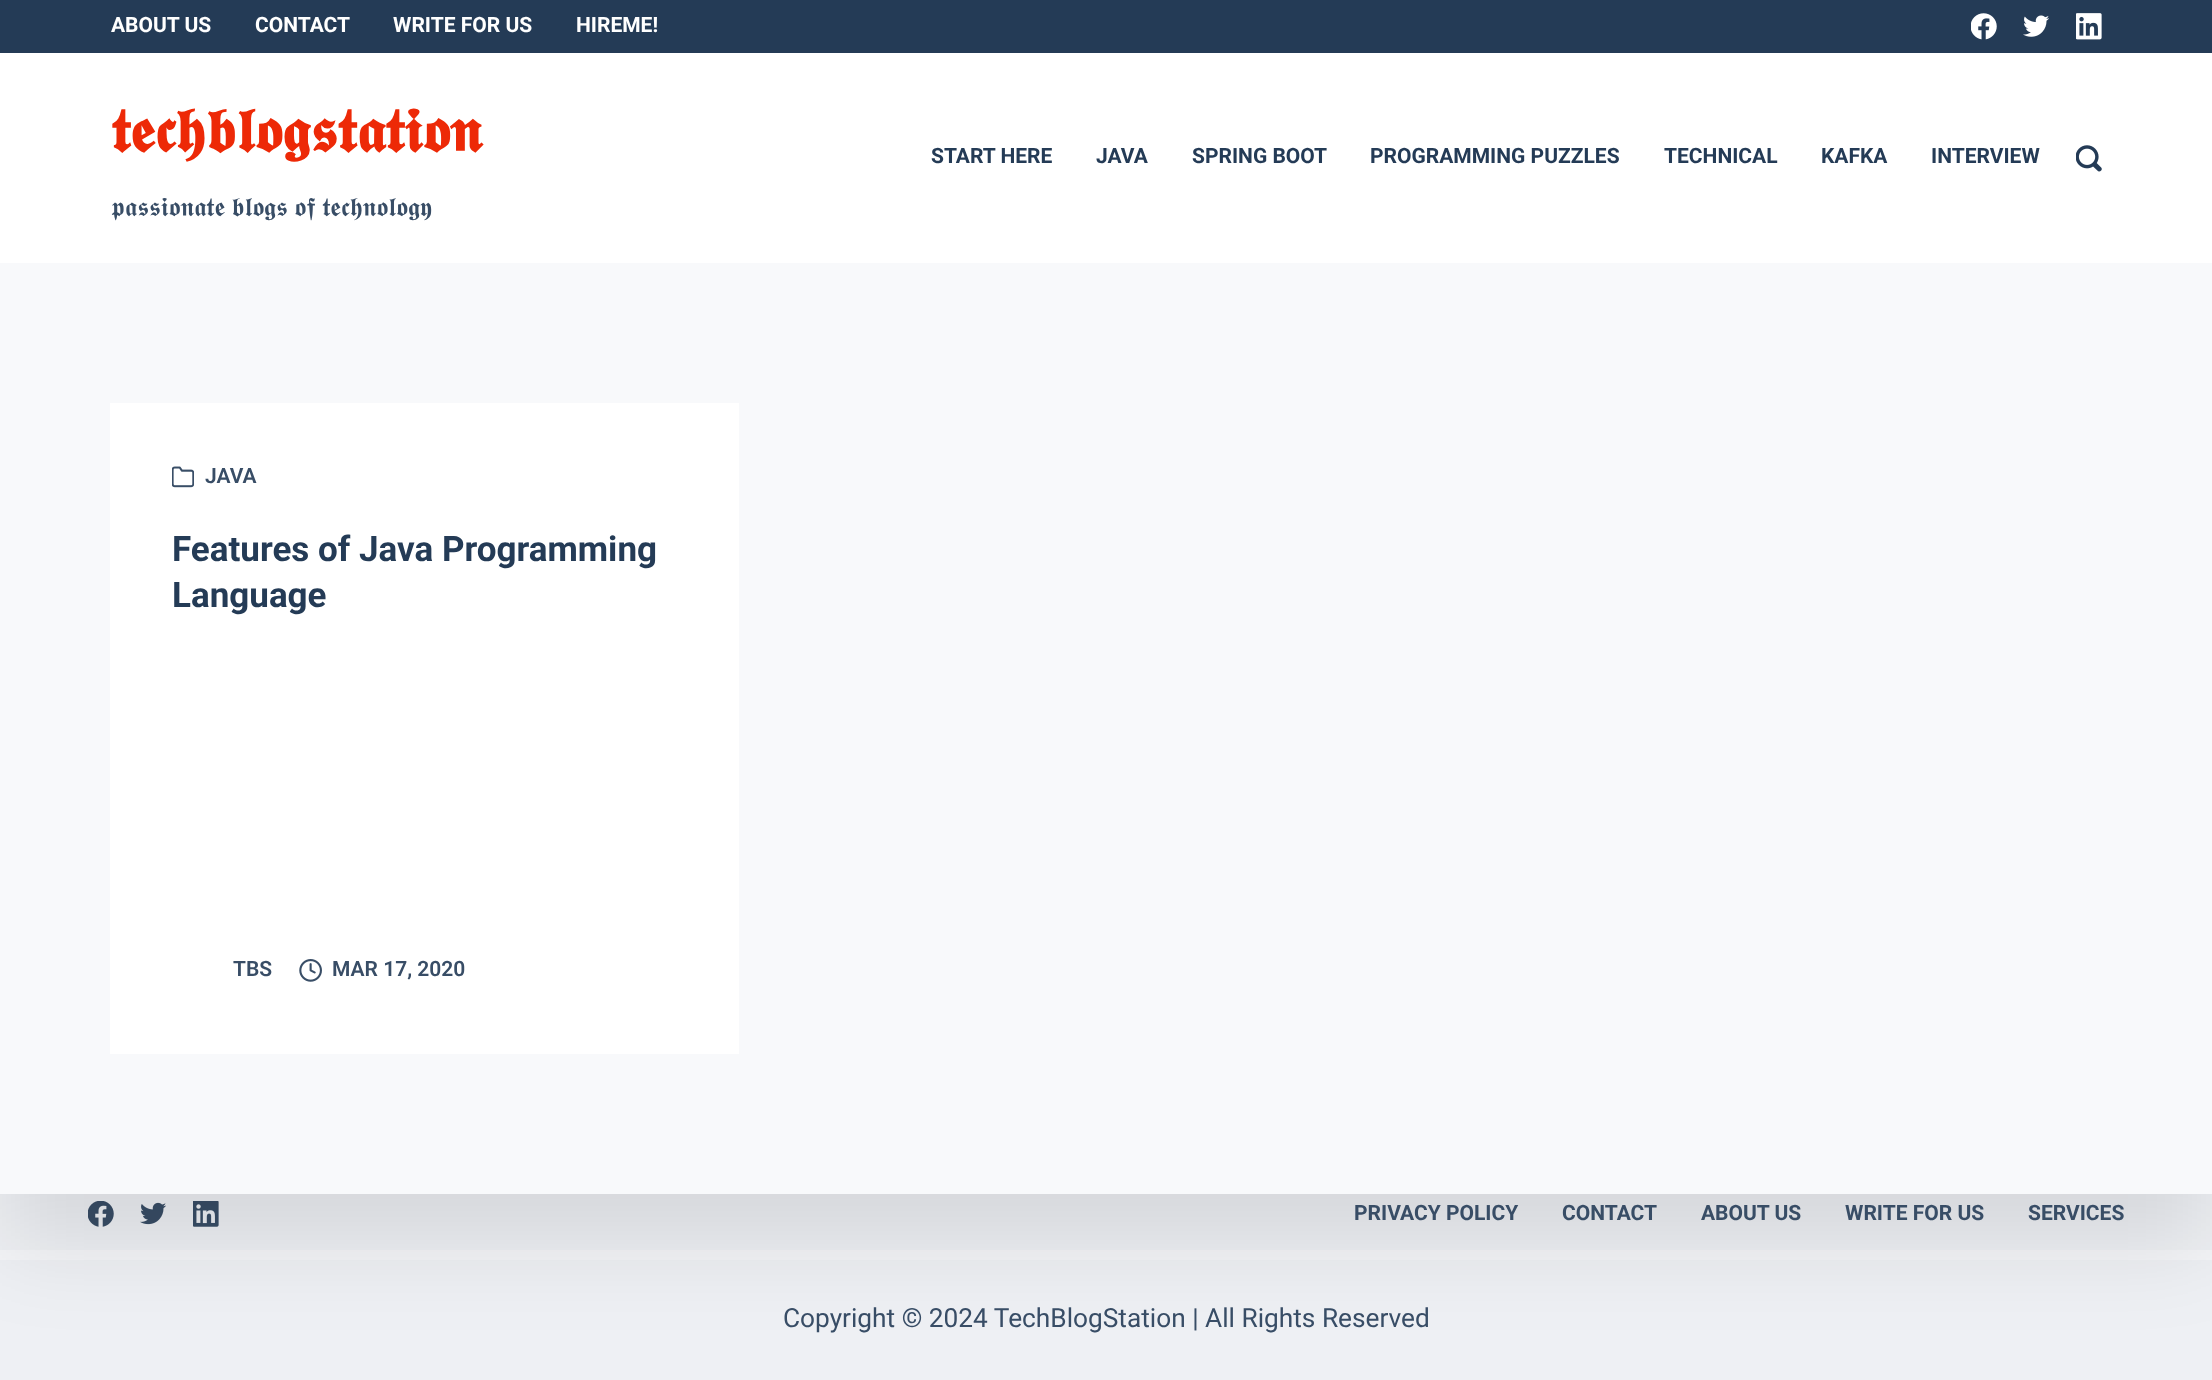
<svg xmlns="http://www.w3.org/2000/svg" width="2212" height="1380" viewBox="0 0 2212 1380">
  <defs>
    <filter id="blur1" x="-50%" y="-200%" width="200%" height="500%"><feGaussianBlur stdDeviation="44"/></filter>
  </defs>
  <rect width="100%" height="100%" fill="#f4f5f8"/>
  <rect x="0" y="1194" width="2212" height="56" fill="#eef0f4"/>
  <image x="88" y="1201" width="26" height="26" href="img7.png"/>
  <image x="140" y="1202" width="26" height="23" href="img8.png"/>
  <image x="193" y="1201" width="26" height="26" href="img9.png"/>
  <rect x="0" y="1260" width="2212" height="120" fill="#eef0f4"/>
  <rect x="0" y="315" width="2212" height="931" fill="#000000" fill-opacity="0.1" filter="url(#blur1)"/>
  <rect x="0" y="53" width="2212" height="210" fill="#ffffff"/>
  <rect x="0" y="0" width="2212" height="53" fill="#243b56"/>
  <text x="111" y="32" font-family="Roboto" font-size="21" font-weight="bold" fill="#ffffff">ABOUT US</text>
  <text x="255" y="32" font-family="Roboto" font-size="21" font-weight="bold" fill="#ffffff">CONTACT</text>
  <text x="393" y="32" font-family="Roboto" font-size="21" font-weight="bold" fill="#ffffff">WRITE FOR US</text>
  <text x="576" y="32" font-family="Roboto" font-size="21" font-weight="bold" fill="#ffffff">HIREME!</text>
  <image x="1971" y="13" width="26" height="27" href="img1.png"/>
  <image x="2023" y="15" width="26" height="22" href="img2.png"/>
  <image x="2076" y="13" width="26" height="27" href="img3.png"/>
  <text x="111" y="152" font-family="FreeSerif" font-size="61.25" font-weight="bold" fill="#ed2907">𝖙𝖊𝖈𝖍𝖇𝖑𝖔𝖌𝖘𝖙𝖆𝖙𝖎𝖔𝖓</text>
  <text x="111" y="216" font-family="FreeSerif" font-size="26.25" fill="#384d66">𝖕𝖆𝖘𝖘𝖎𝖔𝖓𝖆𝖙𝖊 𝖇𝖑𝖔𝖌𝖘 𝖔𝖋 𝖙𝖊𝖈𝖍𝖓𝖔𝖑𝖔𝖌𝖞</text>
  <text x="931" y="163" font-family="Roboto" font-size="21" font-weight="bold" fill="#243b56">START HERE</text>
  <text x="1096" y="163" font-family="Roboto" font-size="21" font-weight="bold" fill="#243b56">JAVA</text>
  <text x="1192" y="163" font-family="Roboto" font-size="21" font-weight="bold" fill="#243b56">SPRING BOOT</text>
  <text x="1370" y="163" font-family="Roboto" font-size="21" font-weight="bold" fill="#243b56">PROGRAMMING PUZZLES</text>
  <text x="1664" y="163" font-family="Roboto" font-size="21" font-weight="bold" fill="#243b56">TECHNICAL</text>
  <text x="1821" y="163" font-family="Roboto" font-size="21" font-weight="bold" fill="#243b56">KAFKA</text>
  <text x="1931" y="163" font-family="Roboto" font-size="21" font-weight="bold" fill="#243b56">INTERVIEW</text>
  <image x="2076" y="145" width="26" height="27" href="img4.png"/>
  <rect x="0" y="263" width="2212" height="931" fill="#f8f9fb"/>
  <rect x="110" y="403" width="629" height="651" fill="#ffffff"/>
  <image x="172" y="466" width="22" height="22" href="img5.png"/>
  <text x="205" y="483" font-family="Roboto" font-size="21" font-weight="600" fill="#384d66">JAVA</text>
  <text x="172" y="561" font-family="Roboto" font-size="35" font-weight="bold" fill="#243b56">Features of Java Programming</text>
  <text x="172" y="607" font-family="Roboto" font-size="35" font-weight="bold" fill="#243b56">Language</text>
  <text x="233" y="976" font-family="Roboto" font-size="21" font-weight="600" fill="#384d66">TBS</text>
  <image x="299" y="959" width="23" height="23" href="img6.png"/>
  <text x="332" y="976" font-family="Roboto" font-size="21" font-weight="600" fill="#384d66">MAR 17, 2020</text>
  <text x="1354" y="1220" font-family="Roboto" font-size="21" font-weight="bold" fill="#384d66">PRIVACY POLICY</text>
  <text x="1562" y="1220" font-family="Roboto" font-size="21" font-weight="bold" fill="#384d66">CONTACT</text>
  <text x="1701" y="1220" font-family="Roboto" font-size="21" font-weight="bold" fill="#384d66">ABOUT US</text>
  <text x="1845" y="1220" font-family="Roboto" font-size="21" font-weight="bold" fill="#384d66">WRITE FOR US</text>
  <text x="2028" y="1220" font-family="Roboto" font-size="21" font-weight="bold" fill="#384d66">SERVICES</text>
  <text x="783" y="1327" font-family="Roboto" font-size="26.25" fill="#384d66">Copyright © 2024 TechBlogStation | All Rights Reserved</text>
</svg>
